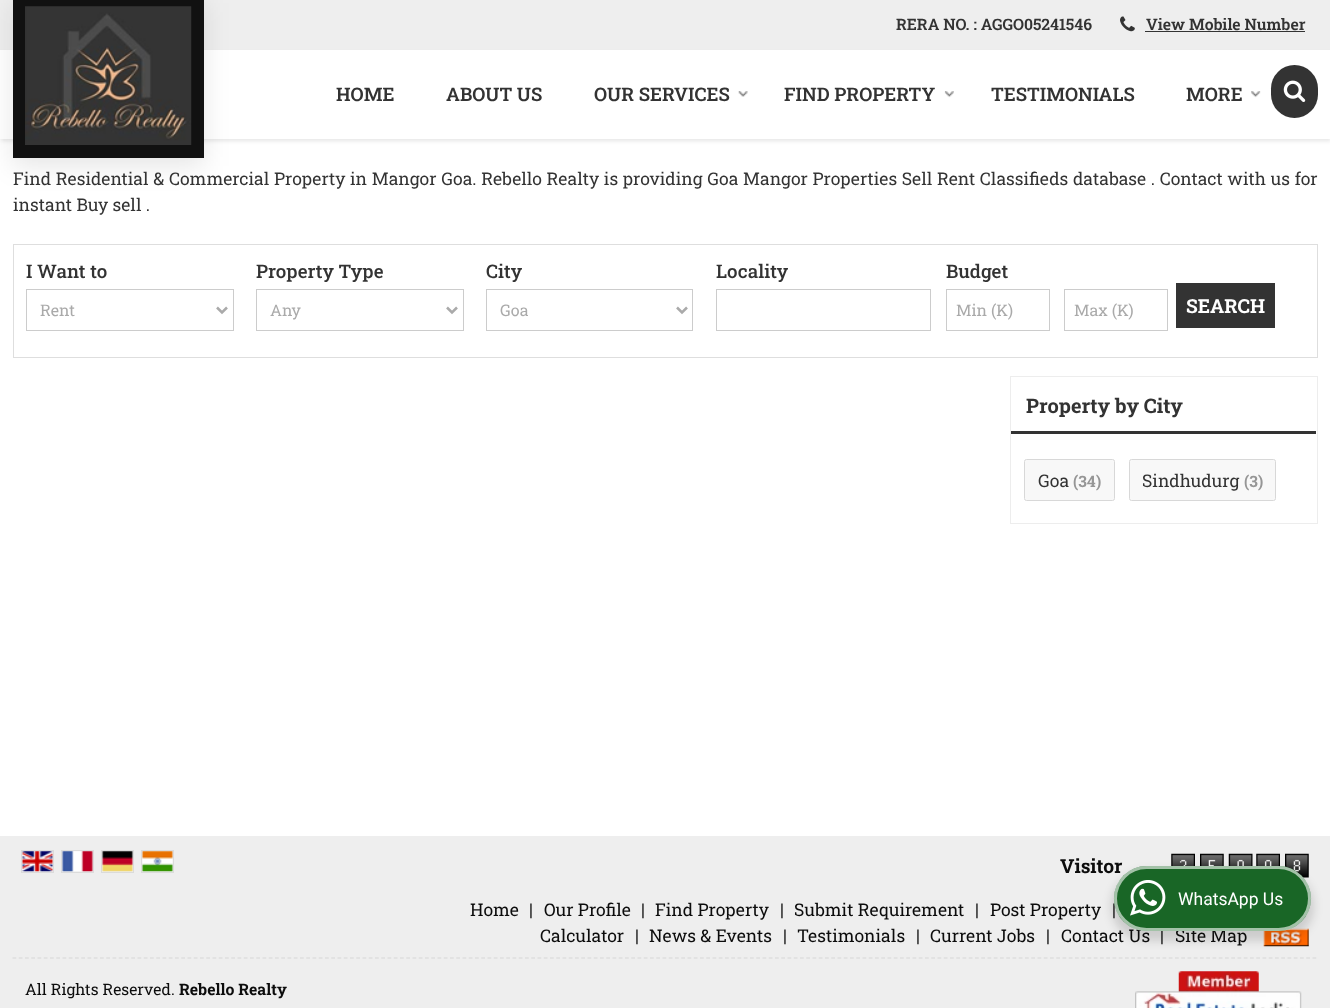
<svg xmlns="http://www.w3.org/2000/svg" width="1330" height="1008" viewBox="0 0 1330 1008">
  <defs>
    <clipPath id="clip1"><path d="M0 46H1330V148H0ZM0 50H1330V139H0Z" clip-rule="evenodd"/></clipPath>
    <filter id="blur1" x="-50%" y="-200%" width="200%" height="500%"><feGaussianBlur stdDeviation="2"/></filter>
    <filter id="blur2" x="-50%" y="-200%" width="200%" height="500%"><feGaussianBlur stdDeviation="13"/></filter>
    <filter id="blur3" x="-50%" y="-200%" width="200%" height="500%"><feGaussianBlur stdDeviation="5"/></filter>
  </defs>
  <rect width="100%" height="100%" fill="#ffffff"/>
  <rect x="0" y="0" width="1330" height="50" fill="#eeeeee"/>
  <text x="896" y="30" font-family="Roboto Slab" font-size="15.75" font-weight="600" fill="#333333">RERA NO. : AGGO05241546</text>
  <image x="1120" y="16" width="15" height="16" href="img1.png"/>
  <text x="1146" y="30" font-family="Roboto Slab" font-size="15.75" font-weight="600" fill="#333333">View Mobile Number</text>
  <rect x="1145" y="31" width="160" height="1" fill="#333333"/>
  <g clip-path="url(#clip1)">
    <rect x="1" y="53" width="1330" height="88" fill="#000000" fill-opacity="0.1" filter="url(#blur1)"/>
  </g>
  <rect x="13" y="3" width="191" height="163" fill="#000000" fill-opacity="0.1" filter="url(#blur2)"/>
  <rect x="13" y="0" width="191" height="158" fill="#111111"/>
  <image x="25" y="6" width="167" height="139" href="img2.png"/>
  <text x="336" y="101" font-family="Roboto Slab" font-size="18.75" font-weight="600" fill="#333333">HOME</text>
  <text x="446" y="101" font-family="Roboto Slab" font-size="18.75" font-weight="600" fill="#333333">ABOUT US</text>
  <text x="594" y="101" font-family="Roboto Slab" font-size="18.75" font-weight="600" fill="#333333">OUR SERVICES</text>
  <image x="738" y="91" width="10" height="6" href="img3.png"/>
  <text x="784" y="101" font-family="Roboto Slab" font-size="18.75" font-weight="600" fill="#333333">FIND PROPERTY</text>
  <image x="944" y="91" width="10" height="7" href="img4.png"/>
  <text x="991" y="101" font-family="Roboto Slab" font-size="18.75" font-weight="600" fill="#333333">TESTIMONIALS</text>
  <text x="1186" y="101" font-family="Roboto Slab" font-size="18.75" font-weight="600" fill="#333333">MORE</text>
  <image x="1251" y="91" width="10" height="7" href="img5.png"/>
  <rect x="1271" y="65" width="47" height="53" rx="23.5" fill="#333333"/>
  <image x="1283" y="80" width="23" height="22" href="img6.png"/>
  <text x="13" y="185" word-spacing="0.3" font-family="Roboto Slab" font-size="17.5" fill="#333333">Find Residential &amp; Commercial Property in Mangor Goa. Rebello Realty is providing Goa Mangor Properties Sell Rent Classifieds database . Contact with us for</text>
  <text x="13" y="211" font-family="Roboto Slab" font-size="17.5" fill="#333333">instant Buy sell .</text>
  <rect x="13.5" y="244.5" width="1304" height="113" fill="none" stroke="#dedede"/>
  <text x="26" y="278" font-family="Roboto Slab" font-size="18.75" font-weight="500" fill="#333333">I Want to</text>
  <rect x="26.5" y="289.5" width="207" height="41" fill="none" stroke="#cccccc"/>
  <path d="M217 307.5L222 312.5L227 307.5" fill="none" stroke="#aaaaaa" stroke-width="2.5"/>
  <text x="40" y="316" font-family="Roboto Slab" font-size="16" fill="#aaaaaa">Rent</text>
  <text x="256" y="278" font-family="Roboto Slab" font-size="18.75" font-weight="500" fill="#333333">Property Type</text>
  <rect x="256.5" y="289.5" width="207" height="41" fill="none" stroke="#cccccc"/>
  <path d="M447 307.5L452 312.5L457 307.5" fill="none" stroke="#aaaaaa" stroke-width="2.5"/>
  <text x="270" y="316" font-family="Roboto Slab" font-size="16" fill="#aaaaaa">Any</text>
  <text x="486" y="278" font-family="Roboto Slab" font-size="18.75" font-weight="500" fill="#333333">City</text>
  <rect x="486.5" y="289.5" width="206" height="41" fill="none" stroke="#cccccc"/>
  <path d="M677 307.5L682 312.5L687 307.5" fill="none" stroke="#aaaaaa" stroke-width="2.5"/>
  <text x="500" y="316" font-family="Roboto Slab" font-size="16" fill="#aaaaaa">Goa</text>
  <text x="716" y="278" font-family="Roboto Slab" font-size="18.75" font-weight="500" fill="#333333">Locality</text>
  <rect x="716.5" y="289.5" width="214" height="41" fill="none" stroke="#cccccc"/>
  <text x="946" y="278" font-family="Roboto Slab" font-size="18.75" font-weight="500" fill="#333333">Budget</text>
  <rect x="946.5" y="289.5" width="103" height="41" fill="none" stroke="#cccccc"/>
  <text x="956" y="316" font-family="Roboto Slab" font-size="16" fill="#aaaaaa">Min (K)</text>
  <rect x="1064.5" y="289.5" width="103" height="41" fill="none" stroke="#cccccc"/>
  <text x="1074" y="316" font-family="Roboto Slab" font-size="16" fill="#aaaaaa">Max (K)</text>
  <rect x="1176" y="283" width="99" height="45" fill="#333333"/>
  <text x="1186" y="313" font-family="Roboto Slab" font-size="19.25" font-weight="bold" fill="#ffffff">SEARCH</text>
  <rect x="1010.5" y="376.5" width="307" height="147" fill="none" stroke="#ededed"/>
  <rect x="1011" y="431" width="305" height="3" fill="#333333"/>
  <text x="1026" y="413" font-family="Roboto Slab" font-size="20" font-weight="bold" fill="#333333">Property by City</text>
  <rect x="1024.5" y="459.5" width="90" height="41" rx="2" fill="#f8f8f8" stroke="#d8d8d8"/>
  <text x="1038" y="487" font-family="Roboto Slab" font-size="17.5" fill="#333333">Goa</text>
  <text x="1073" y="487" font-family="Roboto Slab" font-size="15.75" font-weight="bold" fill="#969696">(34)</text>
  <rect x="1129.5" y="459.5" width="146" height="41" rx="2" fill="#f8f8f8" stroke="#d8d8d8"/>
  <text x="1142" y="487" font-family="Roboto Slab" font-size="17.5" fill="#333333">Sindhudurg</text>
  <text x="1244" y="487" font-family="Roboto Slab" font-size="15.75" font-weight="bold" fill="#969696">(3)</text>
  <rect x="0" y="836" width="1330" height="172" fill="#eeeeee"/>
  <rect x="21.5" y="850.5" width="32" height="22" fill="none" stroke="#dbdbdb"/>
  <rect x="61.5" y="850.5" width="32" height="22" fill="none" stroke="#dbdbdb"/>
  <rect x="101.5" y="850.5" width="32" height="22" fill="none" stroke="#dbdbdb"/>
  <rect x="141.5" y="850.5" width="32" height="22" fill="none" stroke="#dbdbdb"/>
  <image x="22" y="851" width="31" height="21" href="img7.png"/>
  <image x="62" y="851" width="31" height="21" href="img8.png"/>
  <image x="102" y="851" width="31" height="21" href="img9.png"/>
  <image x="142" y="851" width="31" height="21" href="img10.png"/>
  <text x="1060" y="873" font-family="Roboto Slab" font-size="19.25" font-weight="bold" fill="#0c0c0c">Visitor</text>
  <image x="1171" y="853" width="24" height="13" href="img11.png"/>
  <image x="1200" y="853" width="24" height="13" href="img12.png"/>
  <image x="1228" y="853" width="25" height="13" href="img13.png"/>
  <image x="1256" y="853" width="24" height="14" href="img14.png"/>
  <image x="1285" y="853" width="24" height="25" href="img15.png"/>
  <text x="470" y="916" font-family="Roboto Slab" font-size="17.5" fill="#0c0c0c">Home</text>
  <text x="529" y="916" font-family="Roboto Slab" font-size="17.5" fill="#0c0c0c">|</text>
  <text x="544" y="916" font-family="Roboto Slab" font-size="17.5" fill="#0c0c0c">Our Profile</text>
  <text x="641" y="916" font-family="Roboto Slab" font-size="17.5" fill="#0c0c0c">|</text>
  <text x="655" y="916" font-family="Roboto Slab" font-size="17.5" fill="#0c0c0c">Find Property</text>
  <text x="780" y="916" font-family="Roboto Slab" font-size="17.5" fill="#0c0c0c">|</text>
  <text x="794" y="916" font-family="Roboto Slab" font-size="17.5" fill="#0c0c0c">Submit Requirement</text>
  <text x="975" y="916" font-family="Roboto Slab" font-size="17.5" fill="#0c0c0c">|</text>
  <text x="990" y="916" font-family="Roboto Slab" font-size="17.5" fill="#0c0c0c">Post Property</text>
  <text x="1112" y="916" font-family="Roboto Slab" font-size="17.5" fill="#0c0c0c">|</text>
  <text x="540" y="942" font-family="Roboto Slab" font-size="17.5" fill="#0c0c0c">Calculator</text>
  <text x="635" y="942" font-family="Roboto Slab" font-size="17.5" fill="#0c0c0c">|</text>
  <text x="649" y="942" font-family="Roboto Slab" font-size="17.5" fill="#0c0c0c">News &amp; Events</text>
  <text x="783" y="942" font-family="Roboto Slab" font-size="17.5" fill="#0c0c0c">|</text>
  <text x="797" y="942" font-family="Roboto Slab" font-size="17.5" fill="#0c0c0c">Testimonials</text>
  <text x="916" y="942" font-family="Roboto Slab" font-size="17.5" fill="#0c0c0c">|</text>
  <text x="930" y="942" font-family="Roboto Slab" font-size="17.5" fill="#0c0c0c">Current Jobs</text>
  <text x="1046" y="942" font-family="Roboto Slab" font-size="17.5" fill="#0c0c0c">|</text>
  <text x="1061" y="942" font-family="Roboto Slab" font-size="17.5" fill="#0c0c0c">Contact Us</text>
  <text x="1160" y="942" font-family="Roboto Slab" font-size="17.5" fill="#0c0c0c">|</text>
  <text x="1175" y="942" font-family="Roboto Slab" font-size="17.5" fill="#0c0c0c">Site Map</text>
  <image x="1263" y="928" width="46" height="19" href="img16.png"/>
  <path d="M12.5 958H1317.5" fill="none" stroke="#d6d6d6" stroke-width="1.2" stroke-dasharray="3.75 2.5"/>
  <text x="25" y="995" font-family="Roboto Slab" font-size="15.75" fill="#0c0c0c">All Rights Reserved.</text>
  <text x="179" y="995" font-family="Roboto Slab" font-size="15.75" font-weight="bold" fill="#0c0c0c">Rebello Realty</text>
  <image x="1135" y="971" width="167" height="37" href="img17.png"/>
  <rect x="1111" y="871" width="203" height="70" rx="35" fill="#000000" fill-opacity="0.14" filter="url(#blur3)"/>
  <rect x="1114" y="866" width="197" height="65" rx="32.5" fill="#196626"/>
  <rect x="1115.5" y="867.5" width="194" height="62" rx="31" fill="none" stroke="#ffffff" stroke-opacity="0.6" stroke-width="3"/>
  <image x="1130" y="880" width="36" height="36" href="img18.png"/>
  <text x="1178" y="905" font-family="Roboto" font-size="17.5" fill="#ffffff">WhatsApp Us</text>
</svg>
